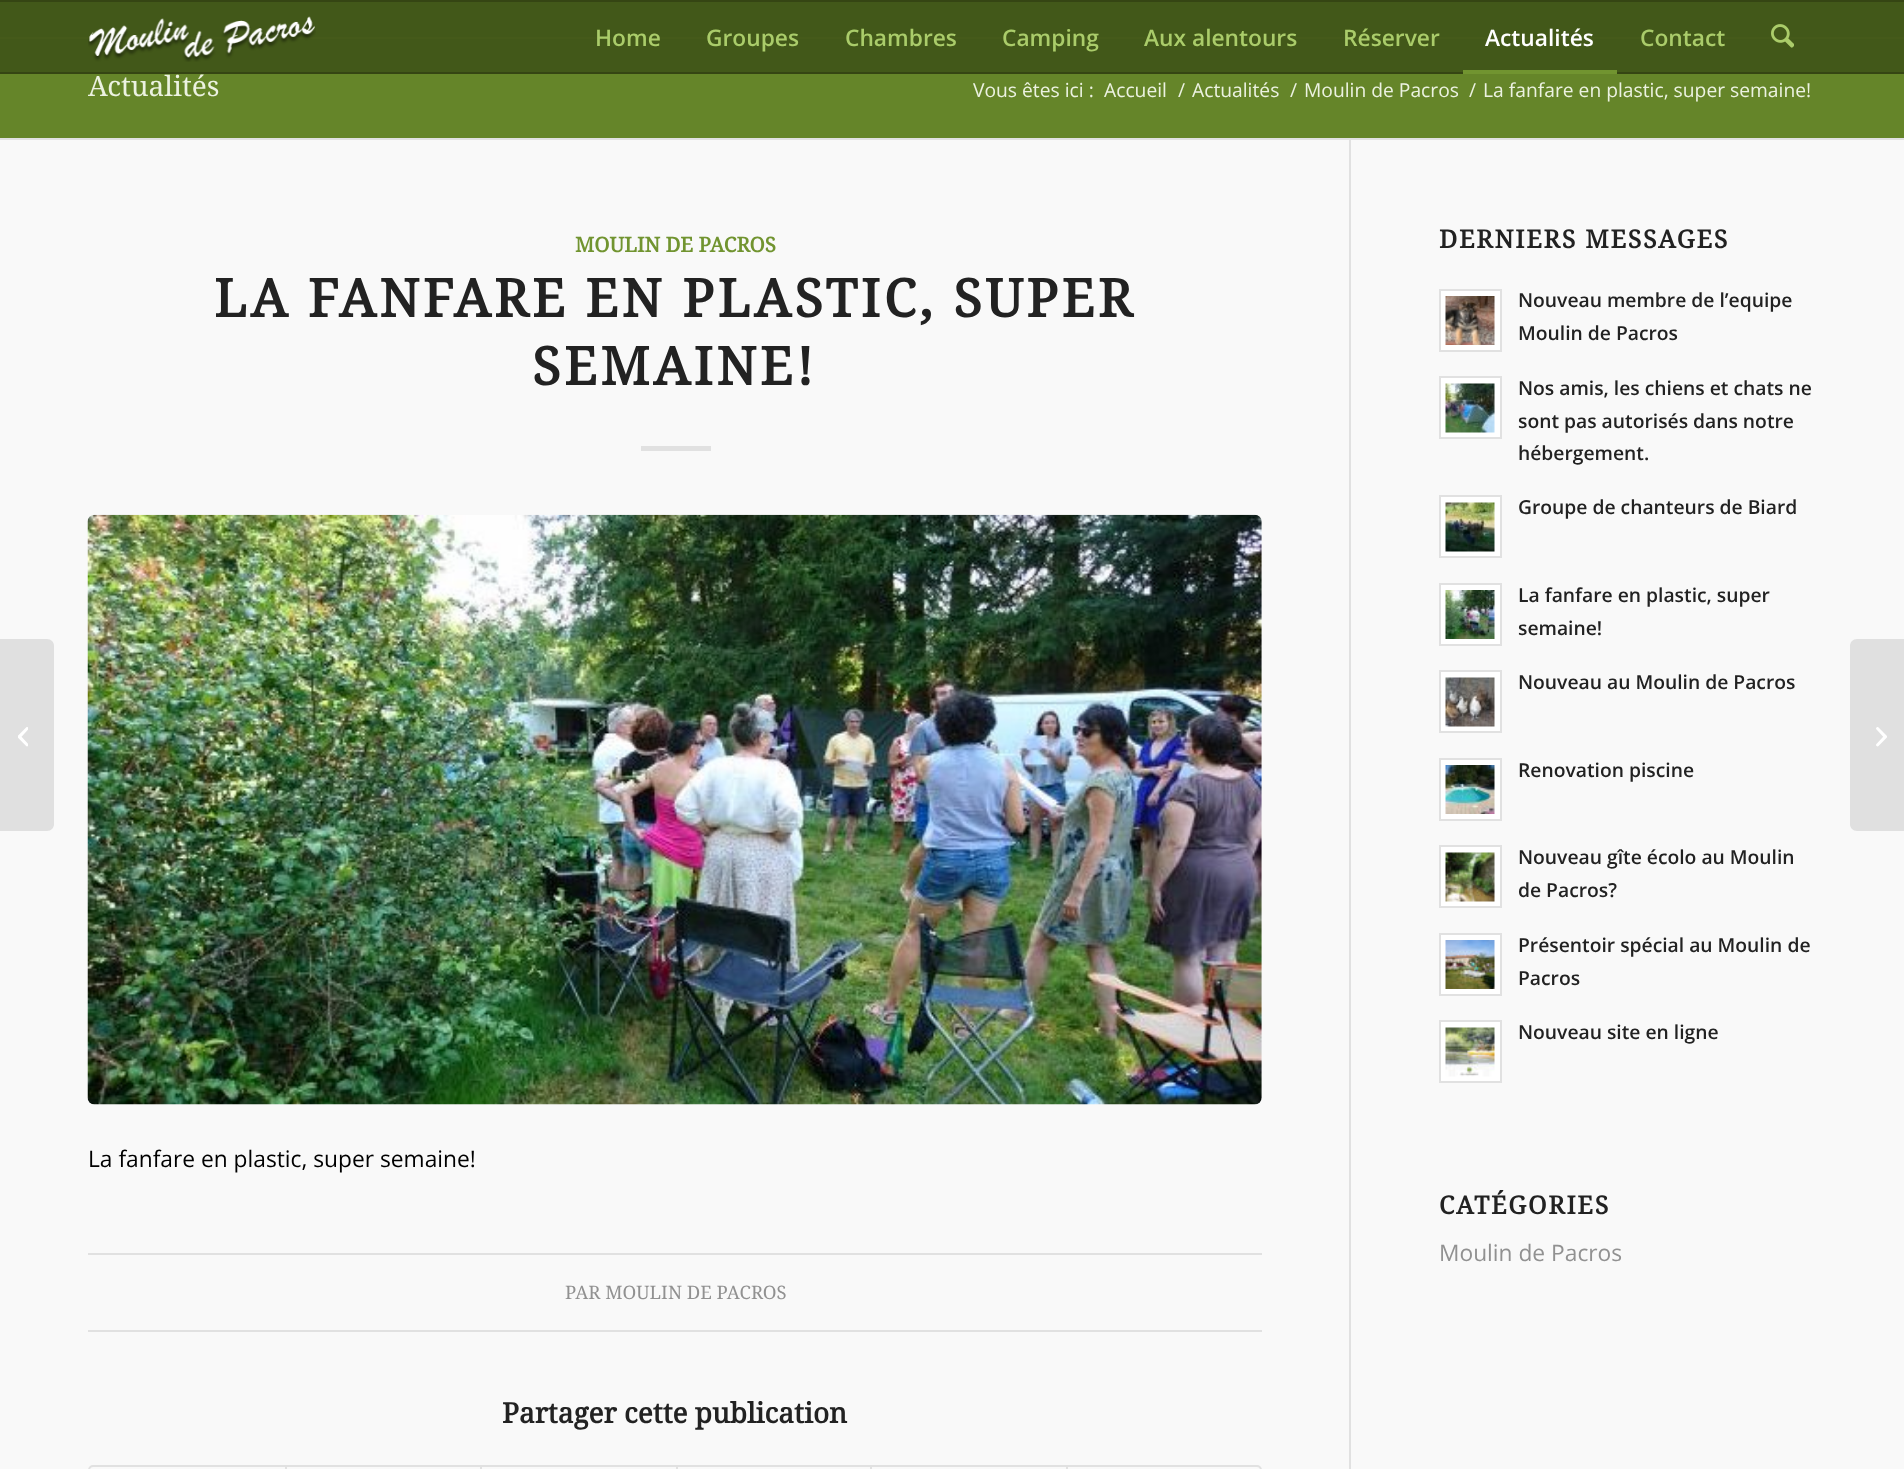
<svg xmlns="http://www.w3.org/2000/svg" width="1904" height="1469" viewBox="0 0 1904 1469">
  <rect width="100%" height="100%" fill="#425819"/>
  <rect x="0" y="0" width="1904" height="2" fill="#354513"/>
  <rect x="0" y="72" width="1904" height="2" fill="#354513"/>
  <rect x="0" y="37" width="1904" height="2" fill="#455a1a"/>
  <image x="88" y="16" width="228" height="46" href="img1.png"/>
  <text x="595" y="46" font-family="Open Sans" font-size="22.75" font-weight="600" fill="#aacc6a">Home</text>
  <text x="706" y="46" font-family="Open Sans" font-size="22.75" font-weight="600" fill="#aacc6a">Groupes</text>
  <text x="845" y="46" font-family="Open Sans" font-size="22.75" font-weight="600" fill="#aacc6a">Chambres</text>
  <text x="1002" y="46" font-family="Open Sans" font-size="22.75" font-weight="600" fill="#aacc6a">Camping</text>
  <text x="1144" y="46" font-family="Open Sans" font-size="22.75" font-weight="600" fill="#aacc6a">Aux alentours</text>
  <text x="1343" y="46" font-family="Open Sans" font-size="22.75" font-weight="600" fill="#aacc6a">Réserver</text>
  <text x="1485" y="46" font-family="Open Sans" font-size="22.75" font-weight="600" fill="#ffffff">Actualités</text>
  <rect x="1463" y="70" width="154" height="4" fill="#719430"/>
  <text x="1640" y="46" font-family="Open Sans" font-size="22.75" font-weight="600" fill="#aacc6a">Contact</text>
  <image x="1771" y="24" width="23" height="24" href="img2.png"/>
  <rect x="0" y="140" width="1904" height="1329" fill="#f9f9f9"/>
  <path d="M0 639H47C51 639 54 642 54 646V824C54 828 51 831 47 831H0Z" fill="#e0e0e0"/>
  <image x="18" y="727" width="10" height="20" href="img3.png"/>
  <rect x="0" y="74" width="1904" height="64" fill="#658529"/>
  <text x="88" y="96" font-family="Droid Serif" font-size="28" fill="#ecf2e1">Actualités</text>
  <text x="973" y="97" font-family="Open Sans" font-size="19.25" fill="#ecf2e1">Vous êtes ici :</text>
  <text x="1104" y="97" font-family="Open Sans" font-size="19.25" fill="#ecf2e1">Accueil</text>
  <text x="1178" y="97" font-family="Open Sans" font-size="19.25" fill="#ecf2e1">/</text>
  <text x="1192" y="97" font-family="Open Sans" font-size="19.25" fill="#ecf2e1">Actualités</text>
  <text x="1290" y="97" font-family="Open Sans" font-size="19.25" fill="#ecf2e1">/</text>
  <text x="1304" y="97" font-family="Open Sans" font-size="19.25" fill="#ecf2e1">Moulin de Pacros</text>
  <text x="1469" y="97" font-family="Open Sans" font-size="19.25" fill="#ecf2e1">/</text>
  <text x="1483" y="97" font-family="Open Sans" font-size="19.25" fill="#ecf2e1">La fanfare en plastic, super semaine!</text>
  <rect x="0" y="138" width="1904" height="2" fill="#e1e1e1"/>
  <rect x="1349" y="140" width="2" height="1329" fill="#e1e1e1"/>
  <text x="575" y="252" font-family="Droid Serif" font-size="20.5" font-weight="bold" fill="#719430">MOULIN DE PACROS</text>
  <text x="214" y="317" font-family="Droid Serif" font-size="52.5" font-weight="bold" letter-spacing="3.5" fill="#222222">LA FANFARE EN PLASTIC, SUPER</text>
  <text x="532" y="385" font-family="Droid Serif" font-size="52.5" font-weight="bold" letter-spacing="3.5" fill="#222222">SEMAINE!</text>
  <rect x="641" y="446" width="70" height="5" fill="#e1e1e1"/>
  <image x="87" y="514" width="1175" height="591" href="img4.png"/>
  <text x="88" y="1167" font-family="Open Sans" font-size="22.75" fill="#000000">La fanfare en plastic, super semaine!</text>
  <rect x="88" y="1253" width="1174" height="2" fill="#e1e1e1"/>
  <rect x="88" y="1330" width="1174" height="2" fill="#e1e1e1"/>
  <text x="565" y="1299" font-family="Droid Serif" font-size="18.5" fill="#919191">PAR MOULIN DE PACROS</text>
  <text x="502" y="1423" font-family="Droid Serif" font-size="28" font-weight="bold" fill="#222222">Partager cette publication</text>
  <rect x="89" y="1466" width="1172" height="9" rx="4" fill="none" stroke="#e1e1e1" stroke-width="2"/>
  <rect x="285" y="1467" width="2" height="2" fill="#e1e1e1"/>
  <rect x="480" y="1467" width="2" height="2" fill="#e1e1e1"/>
  <rect x="676" y="1467" width="2" height="2" fill="#e1e1e1"/>
  <rect x="870" y="1467" width="2" height="2" fill="#e1e1e1"/>
  <rect x="1066" y="1467" width="2" height="2" fill="#e1e1e1"/>
  <text x="1439" y="248" font-family="Droid Serif" font-size="25" font-weight="bold" letter-spacing="1.75" fill="#222222">DERNIERS MESSAGES</text>
  <rect x="1440" y="290" width="61" height="61" fill="#ffffff" stroke="#e1e1e1" stroke-width="2"/>
  <image x="1445" y="296" width="50" height="49" href="img5.png"/>
  <text x="1518" y="307" font-family="Open Sans" font-size="19.3" font-weight="600" fill="#222222">Nouveau membre de l’equipe</text>
  <text x="1518" y="340" font-family="Open Sans" font-size="19.3" font-weight="600" fill="#222222">Moulin de Pacros</text>
  <rect x="1440" y="377" width="61" height="61" fill="#ffffff" stroke="#e1e1e1" stroke-width="2"/>
  <image x="1445" y="383" width="50" height="50" href="img6.png"/>
  <text x="1518" y="395" font-family="Open Sans" font-size="19.3" font-weight="600" fill="#222222">Nos amis, les chiens et chats ne</text>
  <text x="1518" y="428" font-family="Open Sans" font-size="19.3" font-weight="600" fill="#222222">sont pas autorisés dans notre</text>
  <text x="1518" y="460" font-family="Open Sans" font-size="19.3" font-weight="600" fill="#222222">hébergement.</text>
  <rect x="1440" y="496" width="61" height="61" fill="#ffffff" stroke="#e1e1e1" stroke-width="2"/>
  <image x="1445" y="502" width="50" height="50" href="img7.png"/>
  <text x="1518" y="514" font-family="Open Sans" font-size="19.3" font-weight="600" fill="#222222">Groupe de chanteurs de Biard</text>
  <rect x="1440" y="584" width="61" height="61" fill="#ffffff" stroke="#e1e1e1" stroke-width="2"/>
  <image x="1445" y="590" width="50" height="49" href="img8.png"/>
  <text x="1518" y="602" font-family="Open Sans" font-size="19.3" font-weight="600" fill="#222222">La fanfare en plastic, super</text>
  <text x="1518" y="635" font-family="Open Sans" font-size="19.3" font-weight="600" fill="#222222">semaine!</text>
  <rect x="1440" y="671" width="61" height="61" fill="#ffffff" stroke="#e1e1e1" stroke-width="2"/>
  <image x="1445" y="677" width="50" height="50" href="img9.png"/>
  <text x="1518" y="689" font-family="Open Sans" font-size="19.3" font-weight="600" fill="#222222">Nouveau au Moulin de Pacros</text>
  <rect x="1440" y="759" width="61" height="61" fill="#ffffff" stroke="#e1e1e1" stroke-width="2"/>
  <image x="1445" y="765" width="50" height="49" href="img10.png"/>
  <text x="1518" y="777" font-family="Open Sans" font-size="19.3" font-weight="600" fill="#222222">Renovation piscine</text>
  <rect x="1440" y="846" width="61" height="61" fill="#ffffff" stroke="#e1e1e1" stroke-width="2"/>
  <image x="1445" y="852" width="50" height="50" href="img11.png"/>
  <text x="1518" y="864" font-family="Open Sans" font-size="19.3" font-weight="600" fill="#222222">Nouveau gîte écolo au Moulin</text>
  <text x="1518" y="897" font-family="Open Sans" font-size="19.3" font-weight="600" fill="#222222">de Pacros?</text>
  <rect x="1440" y="934" width="61" height="61" fill="#ffffff" stroke="#e1e1e1" stroke-width="2"/>
  <image x="1445" y="940" width="50" height="49" href="img12.png"/>
  <text x="1518" y="952" font-family="Open Sans" font-size="19.3" font-weight="600" fill="#222222">Présentoir spécial au Moulin de</text>
  <text x="1518" y="985" font-family="Open Sans" font-size="19.3" font-weight="600" fill="#222222">Pacros</text>
  <rect x="1440" y="1021" width="61" height="61" fill="#ffffff" stroke="#e1e1e1" stroke-width="2"/>
  <image x="1445" y="1027" width="50" height="50" href="img13.png"/>
  <text x="1518" y="1039" font-family="Open Sans" font-size="19.3" font-weight="600" fill="#222222">Nouveau site en ligne</text>
  <text x="1439" y="1214" font-family="Droid Serif" font-size="25" font-weight="bold" letter-spacing="1.75" fill="#222222">CATÉGORIES</text>
  <text x="1439" y="1261" font-family="Open Sans" font-size="22.75" fill="#919191">Moulin de Pacros</text>
  <path d="M1857 639H1904V831H1857C1853 831 1850 828 1850 824V646C1850 642 1853 639 1857 639Z" fill="#e0e0e0"/>
  <image x="1876" y="727" width="11" height="20" href="img14.png"/>
</svg>
